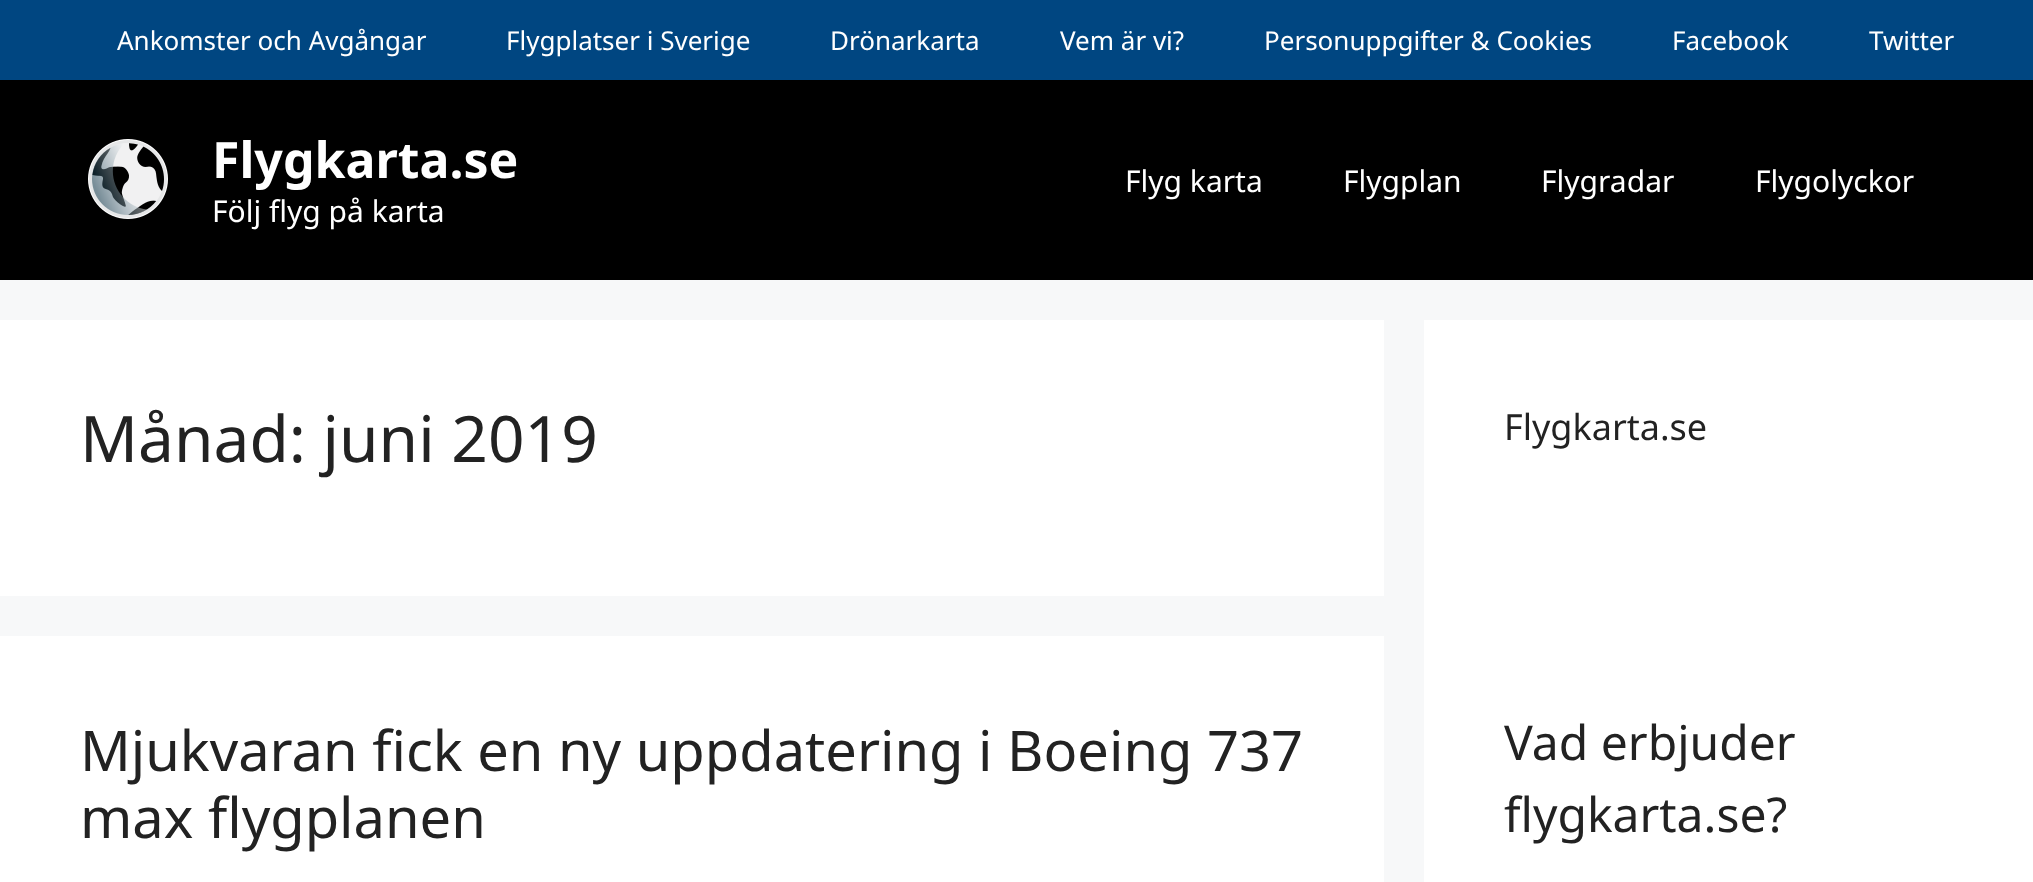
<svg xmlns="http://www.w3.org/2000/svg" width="2033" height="882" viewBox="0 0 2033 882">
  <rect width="100%" height="100%" fill="#f7f8f9"/>
  <rect x="0" y="0" width="2033" height="80" fill="#004681"/>
  <text x="117" y="50" font-family="Noto Sans" font-size="26" fill="#ffffff">Ankomster och Avgångar</text>
  <text x="506" y="50" font-family="Noto Sans" font-size="26" fill="#ffffff">Flygplatser i Sverige</text>
  <text x="830" y="50" font-family="Noto Sans" font-size="26" fill="#ffffff">Drönarkarta</text>
  <text x="1060" y="50" font-family="Noto Sans" font-size="26" fill="#ffffff">Vem är vi?</text>
  <text x="1264" y="50" font-family="Noto Sans" font-size="26" fill="#ffffff">Personuppgifter &amp; Cookies</text>
  <text x="1672" y="50" font-family="Noto Sans" font-size="26" fill="#ffffff">Facebook</text>
  <text x="1869" y="50" font-family="Noto Sans" font-size="26" fill="#ffffff">Twitter</text>
  <rect x="0" y="80" width="2033" height="200" fill="#000000"/>
  <image x="88" y="139" width="80" height="80" href="img1.png"/>
  <text x="212" y="178" font-family="Noto Sans" font-size="50" font-weight="bold" fill="#ffffff">Flygkarta.se</text>
  <text x="212" y="222" font-family="Noto Sans" font-size="30" fill="#ffffff">Följ flyg på karta</text>
  <text x="1125" y="192" font-family="Noto Sans" font-size="30" fill="#ffffff">Flyg karta</text>
  <text x="1343" y="192" font-family="Noto Sans" font-size="30" fill="#ffffff">Flygplan</text>
  <text x="1541" y="192" font-family="Noto Sans" font-size="30" fill="#ffffff">Flygradar</text>
  <text x="1755" y="192" font-family="Noto Sans" font-size="30" fill="#ffffff">Flygolyckor</text>
  <rect x="0" y="320" width="1384" height="276" fill="#ffffff"/>
  <text x="80" y="462" font-family="Noto Sans" font-size="64" fill="#222222">Månad: juni 2019</text>
  <rect x="0" y="636" width="1384" height="246" fill="#ffffff"/>
  <text x="80" y="771" font-family="Noto Sans" font-size="56" fill="#222222">Mjukvaran fick en ny uppdatering i Boeing 737</text>
  <text x="80" y="838" font-family="Noto Sans" font-size="56" fill="#222222">max flygplanen</text>
  <rect x="1424" y="320" width="609" height="562" fill="#ffffff"/>
  <text x="1504" y="440" font-family="Noto Sans" font-size="36" fill="#222222">Flygkarta.se</text>
  <text x="1504" y="760" font-family="Noto Sans" font-size="48" fill="#222222">Vad erbjuder</text>
  <text x="1504" y="832" font-family="Noto Sans" font-size="48" fill="#222222">flygkarta.se?</text>
</svg>
